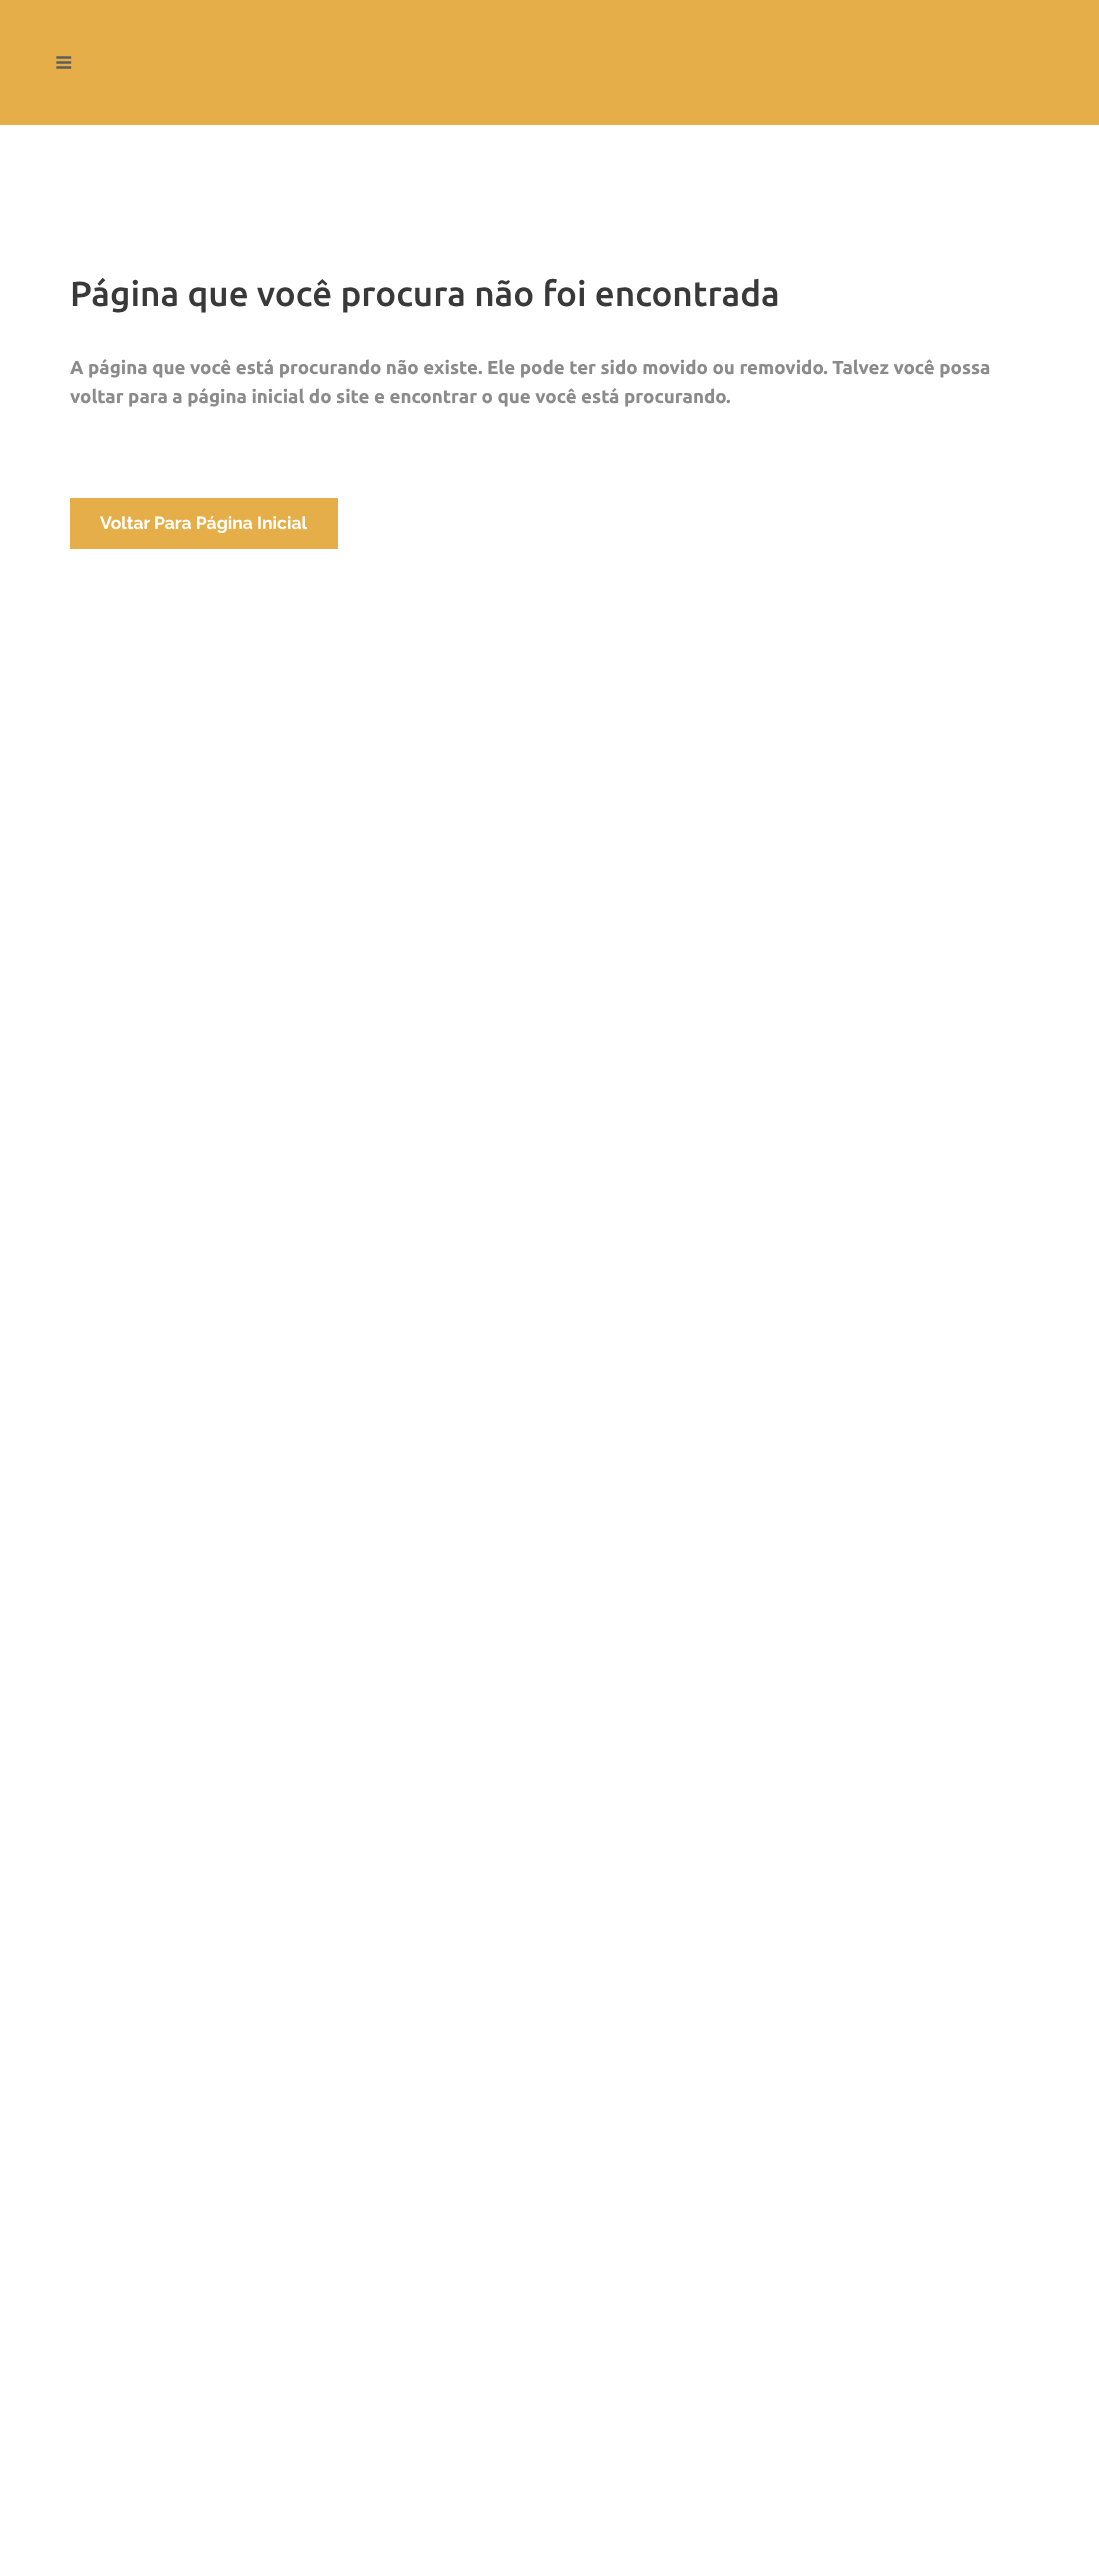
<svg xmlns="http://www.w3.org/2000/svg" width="1099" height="2556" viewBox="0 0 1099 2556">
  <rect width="100%" height="100%" fill="#ffffff"/>
  <rect x="0" y="0" width="1099" height="125" fill="#e6ae48"/>
  <image x="56" y="56" width="16" height="13" href="img1.png"/>
  <text x="70" y="306" font-family="Ubuntu" font-size="35" font-weight="500" fill="#393939">Página que você procura não foi encontrada</text>
  <text x="70" y="374" font-family="Ubuntu" font-size="18.75" font-weight="bold" fill="#8b8b8b">A página que você está procurando não existe. Ele pode ter sido movido ou removido. Talvez você possa</text>
  <text x="70" y="403" font-family="Ubuntu" font-size="18.75" font-weight="bold" fill="#8b8b8b">voltar para a página inicial do site e encontrar o que você está procurando.</text>
  <rect x="70" y="498" width="268" height="51" fill="#e6ae48"/>
  <text x="100" y="529" font-family="Raleway" font-size="17.5" font-weight="bold" fill="#ffffff">Voltar Para Página Inicial</text>
</svg>
